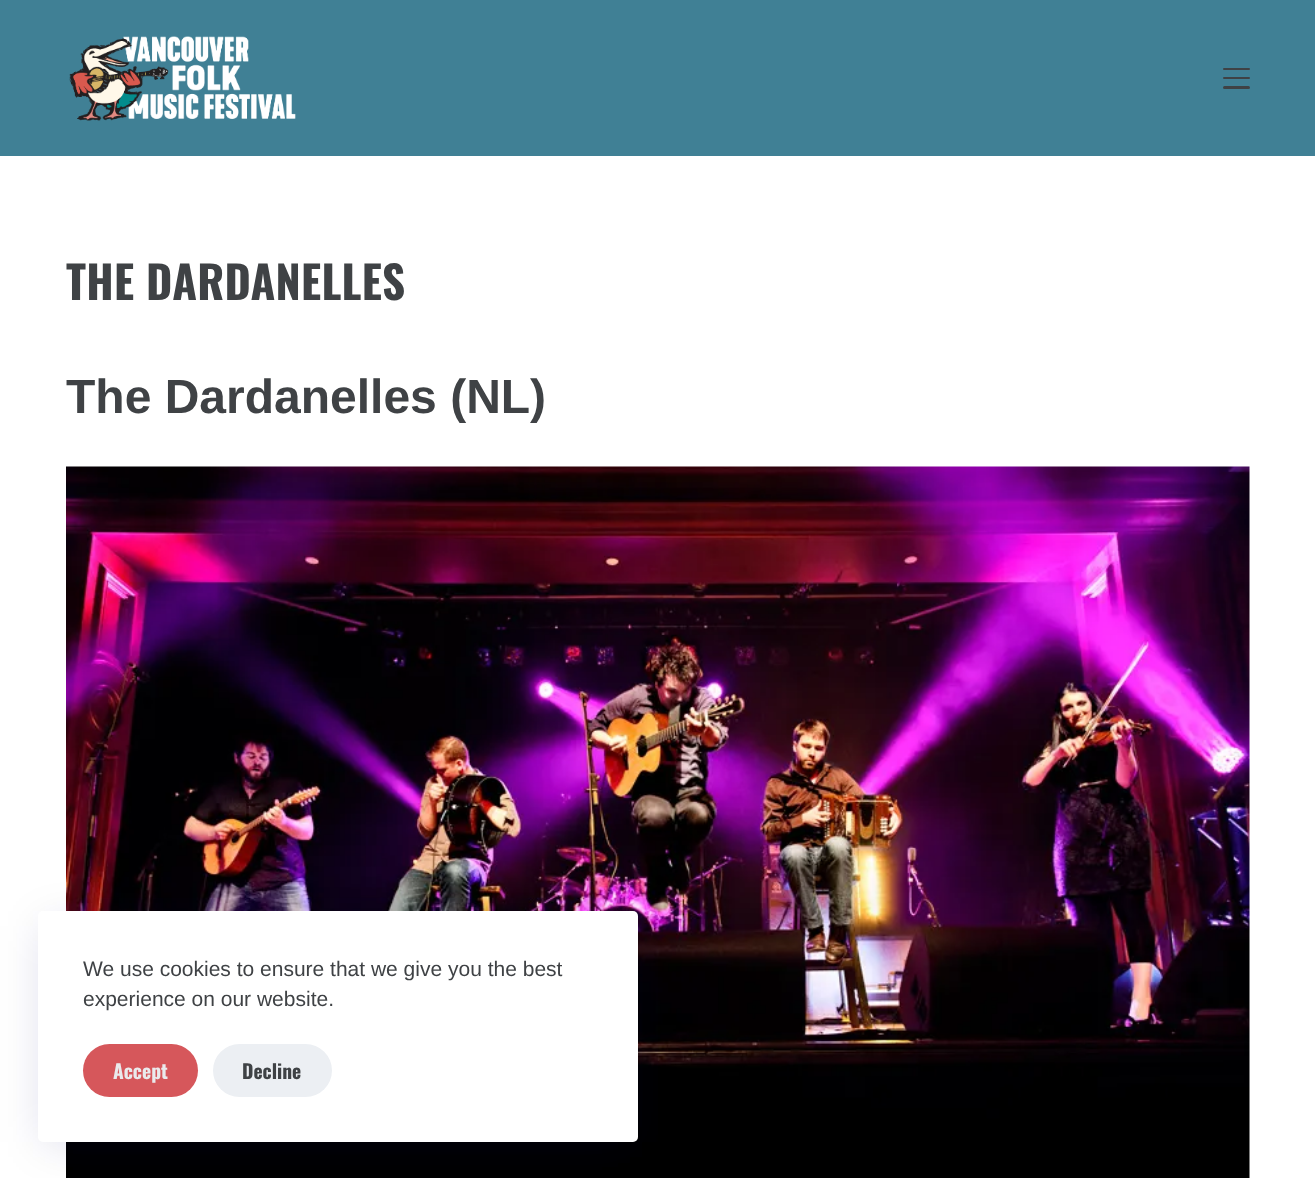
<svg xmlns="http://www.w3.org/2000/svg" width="1315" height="1178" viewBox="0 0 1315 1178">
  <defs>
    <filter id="blur1" x="-50%" y="-200%" width="200%" height="500%"><feGaussianBlur stdDeviation="22.5"/></filter>
  </defs>
  <rect width="100%" height="100%" fill="#ffffff"/>
  <rect x="0" y="0" width="1315" height="156" fill="#408095"/>
  <image x="69" y="36" width="227" height="85" href="img1.png"/>
  <rect x="1223" y="68" width="27" height="2" rx="1" fill="#3f4245"/>
  <rect x="1223" y="77" width="27" height="2" rx="1" fill="#3f4245"/>
  <rect x="1223" y="86" width="27" height="3" rx="1.5" fill="#3f4245"/>
  <text x="66" y="300" font-family="Oswald" font-size="45" font-weight="bold" letter-spacing="0.25" fill="#3f4245">THE DARDANELLES</text>
  <text x="66" y="413" font-family="Liberation Sans" font-size="48" font-weight="bold" fill="#3f4245">The Dardanelles (NL)</text>
  <image x="66" y="466" width="1184" height="712" href="img2.png"/>
  <rect x="45" y="926" width="585" height="216" fill="#223865" fill-opacity="0.15" filter="url(#blur1)"/>
  <rect x="38" y="911" width="600" height="231" rx="5" fill="#ffffff"/>
  <text x="83" y="976" font-family="Liberation Sans" font-size="21" fill="#3f4245">We use cookies to ensure that we give you the best</text>
  <text x="83" y="1006" font-family="Liberation Sans" font-size="21" fill="#3f4245">experience on our website.</text>
  <rect x="83" y="1044" width="115" height="53" rx="26.5" fill="#d6575b"/>
  <text x="113" y="1079" font-family="Oswald" font-size="19.5" font-weight="bold" fill="#eaeaec">Accept</text>
  <rect x="213" y="1044" width="119" height="53" rx="26.5" fill="#eceff3"/>
  <text x="242" y="1079" font-family="Oswald" font-size="19.5" font-weight="bold" fill="#3f4245">Decline</text>
</svg>
